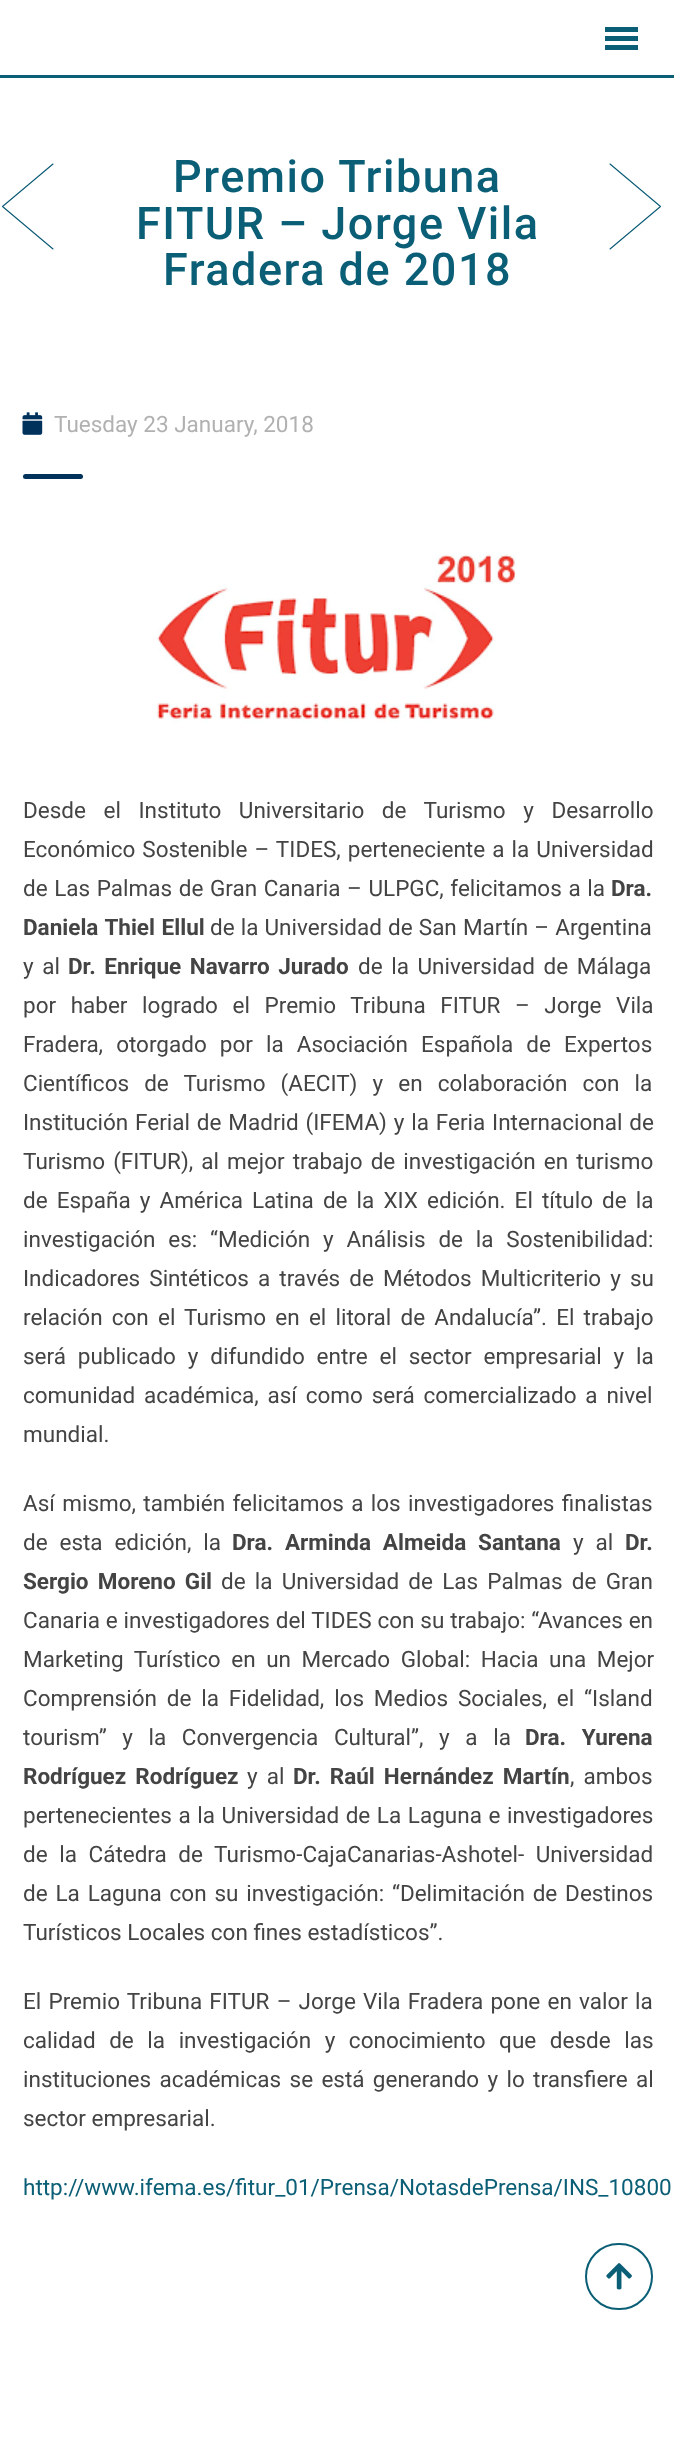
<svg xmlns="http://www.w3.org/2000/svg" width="674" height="2460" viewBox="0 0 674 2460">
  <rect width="100%" height="100%" fill="#ffffff"/>
  <rect x="0" y="75" width="674" height="3" fill="#0a5e76"/>
  <rect x="605" y="27" width="33" height="5" fill="#0a5e76"/>
  <rect x="605" y="36" width="33" height="5" fill="#0a5e76"/>
  <rect x="605" y="45" width="33" height="5" fill="#0a5e76"/>
  <text x="173" y="192" font-family="Roboto" font-size="45" font-weight="500" letter-spacing="1.5" fill="#0a5e76">Premio Tribuna</text>
  <text x="136" y="239" font-family="Roboto" font-size="45" font-weight="500" letter-spacing="1.5" fill="#0a5e76">FITUR – Jorge Vila</text>
  <text x="163" y="285" font-family="Roboto" font-size="45" font-weight="500" letter-spacing="1.5" fill="#0a5e76">Fradera de 2018</text>
  <image x="22" y="412" width="21" height="23" href="img1.png"/>
  <text x="54" y="432" font-family="Roboto" font-size="22.5" fill="#b1b1b1">Tuesday 23 January, 2018</text>
  <rect x="23" y="474" width="60" height="5" rx="2.5" fill="#00325c"/>
  <image x="157" y="553" width="360" height="170" href="img2.png"/>
  <text x="23" y="818" word-spacing="12" font-family="Roboto" font-size="22.5" fill="#444444">Desde el Instituto Universitario de Turismo y Desarrollo</text>
  <text x="23" y="857" word-spacing="1.5" font-family="Roboto" font-size="22.5" fill="#444444">Económico Sostenible – TIDES, perteneciente a la Universidad</text>
  <text x="23" y="896" word-spacing="1" font-family="Roboto" font-size="22.5" fill="#444444">de Las Palmas de Gran Canaria – ULPGC, felicitamos a la</text>
  <text x="611" y="896" font-family="Roboto" font-size="22.5" font-weight="bold" fill="#444444">Dra.</text>
  <text x="23" y="935" word-spacing="1" font-family="Roboto" font-size="22.5" font-weight="bold" fill="#444444">Daniela Thiel Ellul</text>
  <text x="210" y="935" word-spacing="0.5" font-family="Roboto" font-size="22.5" fill="#444444">de la Universidad de San Martín – Argentina</text>
  <text x="23" y="974" word-spacing="3" font-family="Roboto" font-size="22.5" fill="#444444">y al</text>
  <text x="68" y="974" word-spacing="3" font-family="Roboto" font-size="22.5" font-weight="bold" fill="#444444">Dr. Enrique Navarro Jurado</text>
  <text x="358" y="974" word-spacing="3" font-family="Roboto" font-size="22.5" fill="#444444">de la Universidad de Málaga</text>
  <text x="23" y="1013" word-spacing="9" font-family="Roboto" font-size="22.5" fill="#444444">por haber logrado el Premio Tribuna FITUR – Jorge Vila</text>
  <text x="23" y="1052" word-spacing="7.5" font-family="Roboto" font-size="22.5" fill="#444444">Fradera, otorgado por la Asociación Española de Expertos</text>
  <text x="23" y="1091" word-spacing="9.5" font-family="Roboto" font-size="22.5" fill="#444444">Científicos de Turismo (AECIT) y en colaboración con la</text>
  <text x="23" y="1130" word-spacing="1.25" font-family="Roboto" font-size="22.5" fill="#444444">Institución Ferial de Madrid (IFEMA) y la Feria Internacional de</text>
  <text x="23" y="1169" word-spacing="2.5" font-family="Roboto" font-size="22.5" fill="#444444">Turismo (FITUR), al mejor trabajo de investigación en turismo</text>
  <text x="23" y="1208" word-spacing="3.5" font-family="Roboto" font-size="22.5" fill="#444444">de España y América Latina de la XIX edición. El título de la</text>
  <text x="23" y="1247" word-spacing="7.25" font-family="Roboto" font-size="22.5" fill="#444444">investigación es: “Medición y Análisis de la Sostenibilidad:</text>
  <text x="23" y="1286" word-spacing="3.5" font-family="Roboto" font-size="22.5" fill="#444444">Indicadores Sintéticos a través de Métodos Multicriterio y su</text>
  <text x="23" y="1325" word-spacing="3.6" font-family="Roboto" font-size="22.5" fill="#444444">relación con el Turismo en el litoral de Andalucía”. El trabajo</text>
  <text x="23" y="1364" word-spacing="6.25" font-family="Roboto" font-size="22.5" fill="#444444">será publicado y difundido entre el sector empresarial y la</text>
  <text x="23" y="1403" word-spacing="3.25" font-family="Roboto" font-size="22.5" fill="#444444">comunidad académica, así como será comercializado a nivel</text>
  <text x="23" y="1442" font-family="Roboto" font-size="22.5" fill="#444444">mundial.</text>
  <text x="23" y="1511" word-spacing="1.75" font-family="Roboto" font-size="22.5" fill="#444444">Así mismo, también felicitamos a los investigadores finalistas</text>
  <text x="23" y="1550" word-spacing="6.25" font-family="Roboto" font-size="22.5" fill="#444444">de esta edición, la</text>
  <text x="232" y="1550" word-spacing="6.25" font-family="Roboto" font-size="22.5" font-weight="bold" fill="#444444">Dra. Arminda Almeida Santana</text>
  <text x="573" y="1550" word-spacing="6.25" font-family="Roboto" font-size="22.5" fill="#444444">y al</text>
  <text x="625" y="1550" font-family="Roboto" font-size="22.5" font-weight="bold" fill="#444444">Dr.</text>
  <text x="23" y="1589" word-spacing="3.6" font-family="Roboto" font-size="22.5" font-weight="bold" fill="#444444">Sergio Moreno Gil</text>
  <text x="221" y="1589" word-spacing="3.6" font-family="Roboto" font-size="22.5" fill="#444444">de la Universidad de Las Palmas de Gran</text>
  <text x="23" y="1628" word-spacing="0.25" font-family="Roboto" font-size="22.5" fill="#444444">Canaria e investigadores del TIDES con su trabajo: “Avances en</text>
  <text x="23" y="1667" word-spacing="5" font-family="Roboto" font-size="22.5" fill="#444444">Marketing Turístico en un Mercado Global: Hacia una Mejor</text>
  <text x="23" y="1706" word-spacing="4.25" font-family="Roboto" font-size="22.5" fill="#444444">Comprensión de la Fidelidad, los Medios Sociales, el “Island</text>
  <text x="23" y="1745" word-spacing="10" font-family="Roboto" font-size="22.5" fill="#444444">tourism” y la Convergencia Cultural”, y a la</text>
  <text x="525" y="1745" word-spacing="10" font-family="Roboto" font-size="22.5" font-weight="bold" fill="#444444">Dra. Yurena</text>
  <text x="23" y="1784" word-spacing="3.5" font-family="Roboto" font-size="22.5" font-weight="bold" fill="#444444">Rodríguez Rodríguez</text>
  <text x="247" y="1784" word-spacing="3.5" font-family="Roboto" font-size="22.5" fill="#444444">y al</text>
  <text x="293" y="1784" word-spacing="3.5" font-family="Roboto" font-size="22.5" font-weight="bold" fill="#444444">Dr. Raúl Hernández Martín</text>
  <text x="570" y="1784" word-spacing="3.5" font-family="Roboto" font-size="22.5" fill="#444444">, ambos</text>
  <text x="23" y="1823" word-spacing="1" font-family="Roboto" font-size="22.5" fill="#444444">pertenecientes a la Universidad de La Laguna e investigadores</text>
  <text x="23" y="1862" word-spacing="6" font-family="Roboto" font-size="22.5" fill="#444444">de la Cátedra de Turismo-CajaCanarias-Ashotel- Universidad</text>
  <text x="23" y="1901" word-spacing="2.25" font-family="Roboto" font-size="22.5" fill="#444444">de La Laguna con su investigación: “Delimitación de Destinos</text>
  <text x="23" y="1940" font-family="Roboto" font-size="22.5" fill="#444444">Turísticos Locales con fines estadísticos”.</text>
  <text x="23" y="2009" word-spacing="1.6" font-family="Roboto" font-size="22.5" fill="#444444">El Premio Tribuna FITUR – Jorge Vila Fradera pone en valor la</text>
  <text x="23" y="2048" word-spacing="8" font-family="Roboto" font-size="22.5" fill="#444444">calidad de la investigación y conocimiento que desde las</text>
  <text x="23" y="2087" word-spacing="2.75" font-family="Roboto" font-size="22.5" fill="#444444">instituciones académicas se está generando y lo transfiere al</text>
  <text x="23" y="2126" font-family="Roboto" font-size="22.5" fill="#444444">sector empresarial.</text>
  <text x="23" y="2195" font-family="Roboto" font-size="22.5" fill="#0a5e76">http://www.ifema.es/fitur_01/Prensa/NotasdePrensa/INS_10800</text>
  <path d="M53 249L2.5 206.5L53 164" fill="none" stroke="#0a5a75" stroke-width="1.1" stroke-linecap="round" stroke-linejoin="round"/>
  <path d="M610 164L660.5 206.5L610 249" fill="none" stroke="#0a5a75" stroke-width="1.1" stroke-linecap="round" stroke-linejoin="round"/>
  <rect x="586" y="2244" width="66" height="65" rx="32.5" fill="none" stroke="#0a5e76" stroke-width="2"/>
  <image x="606" y="2263" width="26" height="27" href="img3.png"/>
</svg>
